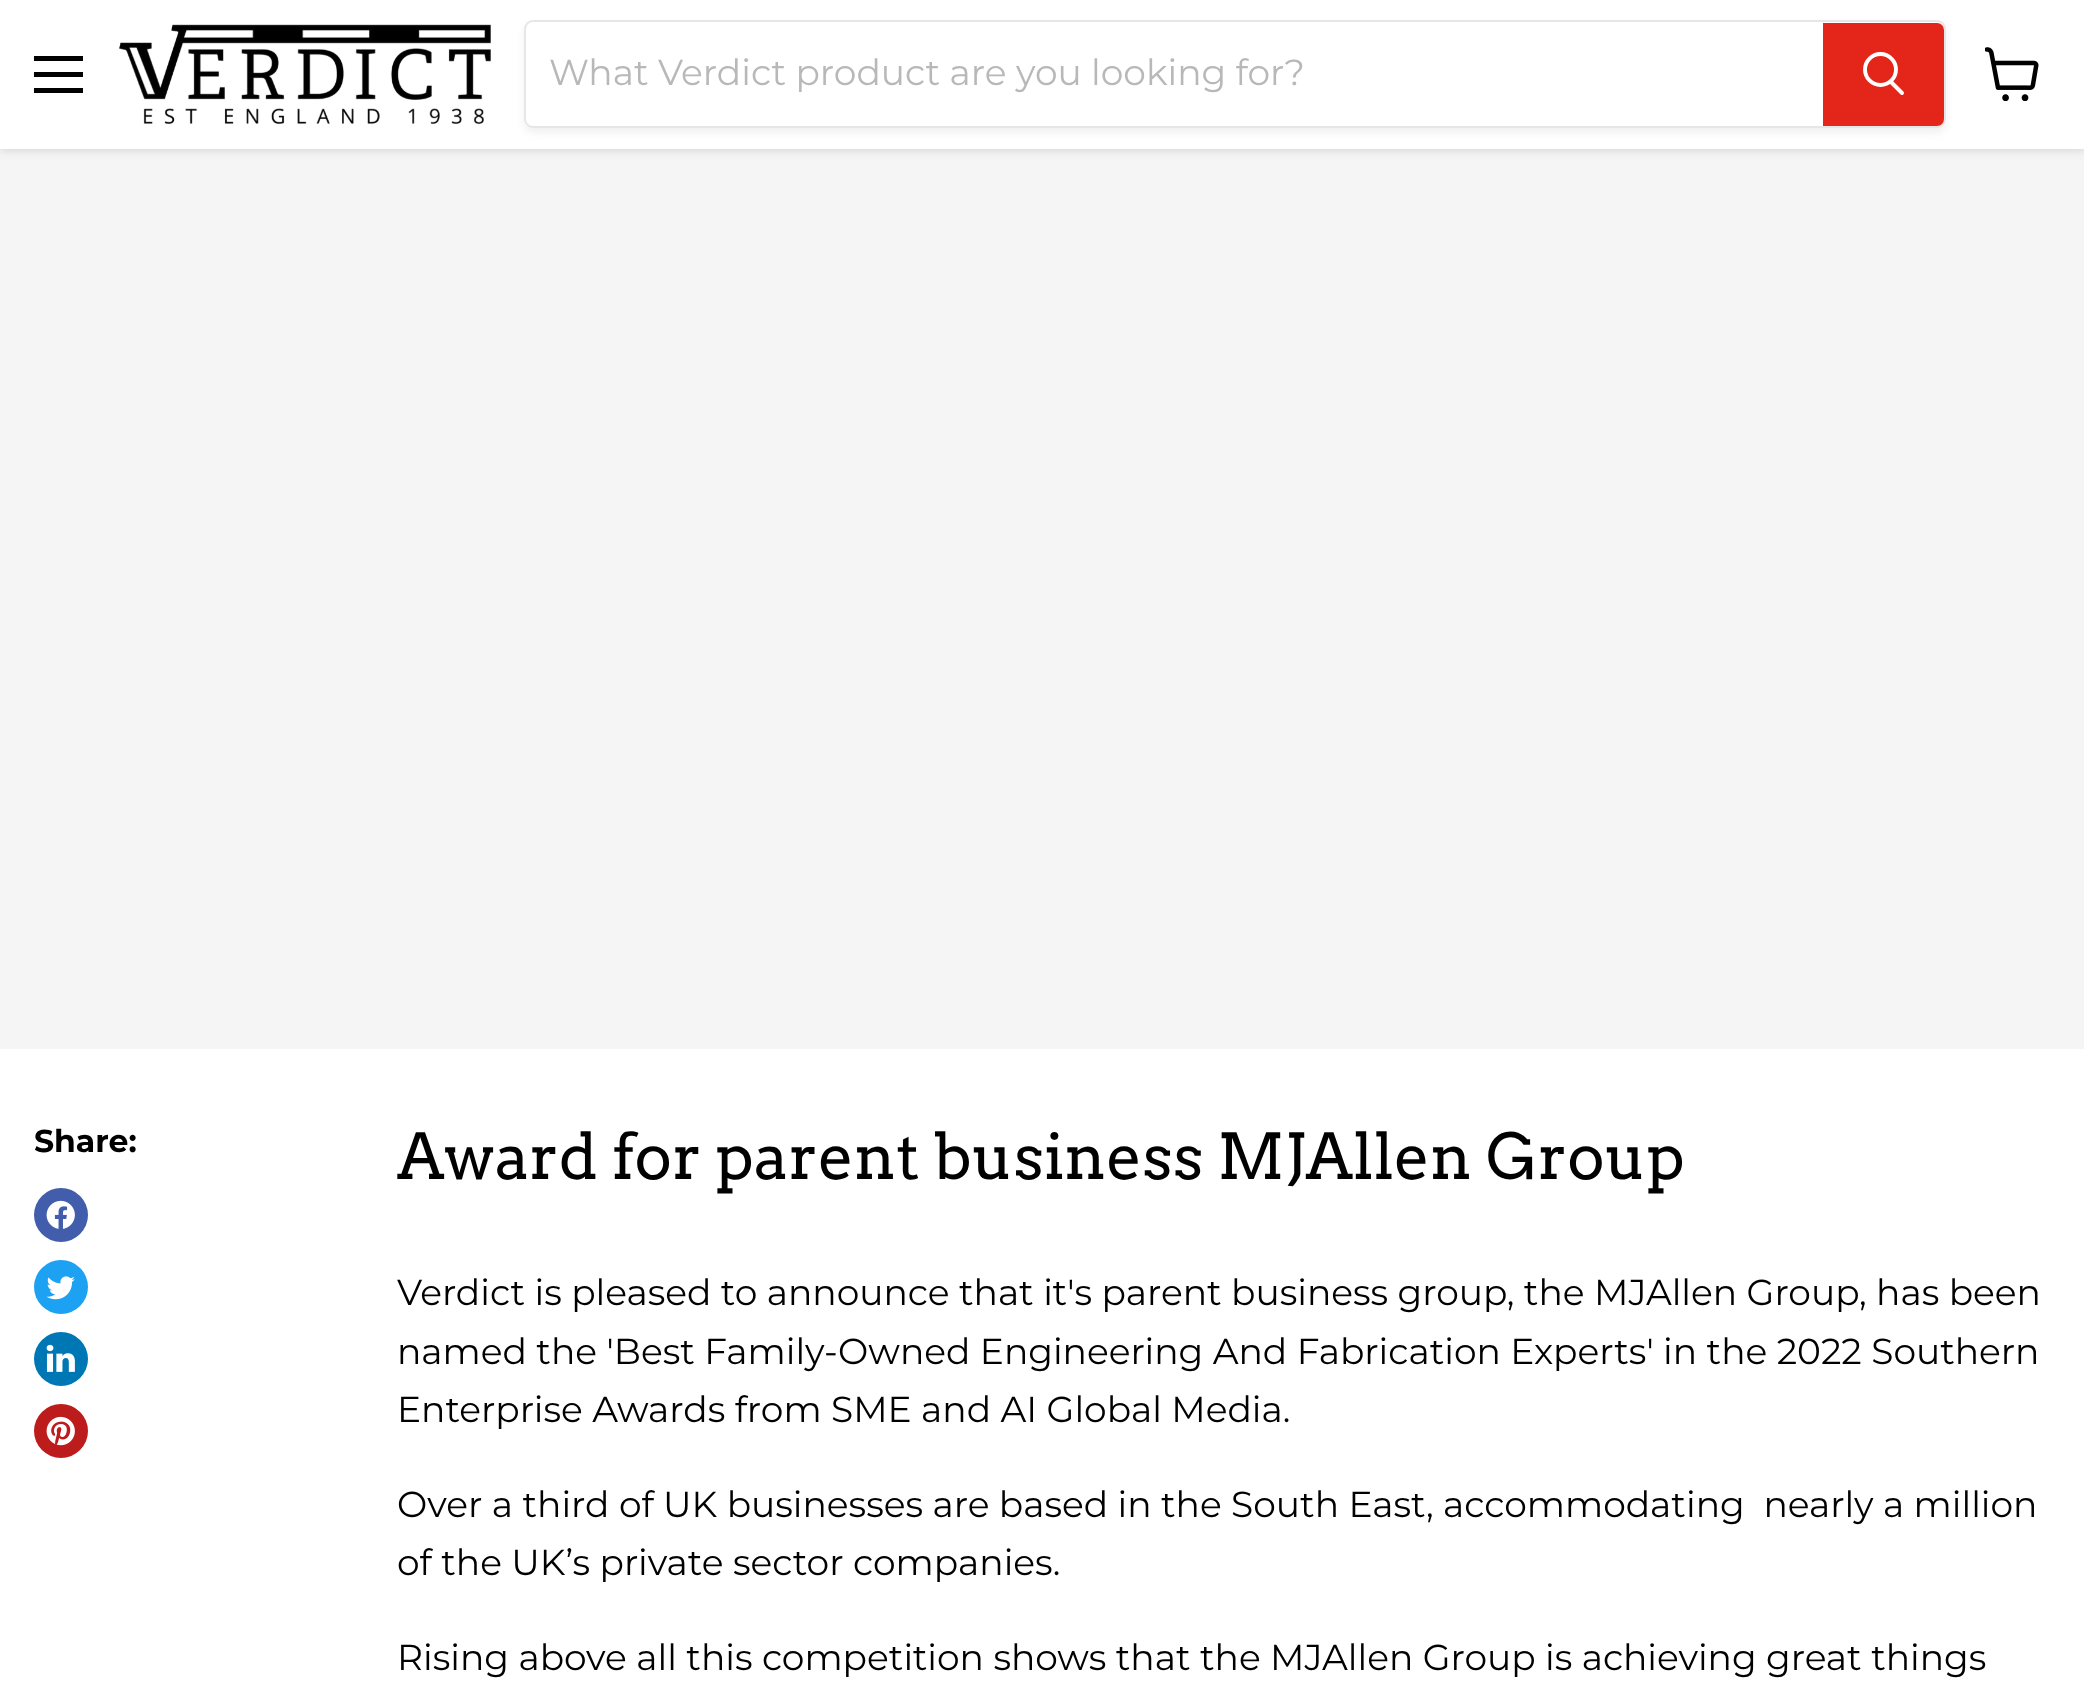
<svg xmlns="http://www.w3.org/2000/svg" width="2084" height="1685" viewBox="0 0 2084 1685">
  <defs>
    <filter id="blur1" x="-50%" y="-200%" width="200%" height="500%"><feGaussianBlur stdDeviation="4.5"/></filter>
    <clipPath id="clip1"><path d="M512 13H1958V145H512ZM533 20H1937C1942 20 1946 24 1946 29V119C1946 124 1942 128 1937 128H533C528 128 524 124 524 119V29C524 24 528 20 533 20Z" clip-rule="evenodd"/></clipPath>
    <filter id="blur2" x="-50%" y="-200%" width="200%" height="500%"><feGaussianBlur stdDeviation="3.5"/></filter>
  </defs>
  <rect width="100%" height="100%" fill="#ffffff"/>
  <rect x="0" y="149" width="2084" height="900" fill="#f5f5f5"/>
  <rect x="0" y="2" width="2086" height="149" fill="#808080" fill-opacity="0.25" filter="url(#blur1)"/>
  <rect x="0" y="0" width="2084" height="149" fill="#ffffff"/>
  <rect x="34" y="56" width="49" height="5" fill="#000000"/>
  <rect x="34" y="72" width="49" height="5" fill="#000000"/>
  <rect x="34" y="88" width="49" height="5" fill="#000000"/>
  <image x="119" y="24" width="372" height="100" href="img1.png"/>
  <g clip-path="url(#clip1)">
    <rect x="524" y="25" width="1422" height="108" rx="9" fill="#808080" fill-opacity="0.11" filter="url(#blur2)"/>
  </g>
  <rect x="525" y="21" width="1420" height="106" rx="8" fill="none" stroke="#808080" stroke-opacity="0.2" stroke-width="2"/>
  <text x="549" y="85" font-family="Montserrat" font-size="36" fill="#b8b8b8">What Verdict product are you looking for?</text>
  <path d="M1824 24H1937C1940.5 24 1943 26.5 1943 30V119C1943 122.5 1940.5 125 1937 125H1824Z" fill="#e32619" stroke="#e32619" stroke-width="2"/>
  <path d="M1902 93L1891 82" fill="none" stroke="#ffffff" stroke-width="3.9" stroke-linecap="round"/>
  <circle cx="1880.5" cy="69.5" r="15.5" fill="none" stroke="#ffffff" stroke-width="3.9"/>
  <image x="1985" y="47" width="54" height="54" href="img2.png"/>
  <text x="34" y="1152" font-family="Montserrat" font-size="31.5" font-weight="bold" fill="#000000">Share:</text>
  <circle cx="61" cy="1215" r="27" fill="#425dab"/>
  <image x="46" y="1200" width="29" height="29" href="img3.png"/>
  <circle cx="61" cy="1287" r="27" fill="#1da1f2"/>
  <image x="46" y="1276" width="29" height="24" href="img4.png"/>
  <circle cx="61" cy="1359" r="27" fill="#0077b5"/>
  <image x="46" y="1344" width="29" height="28" href="img5.png"/>
  <circle cx="61" cy="1431" r="27" fill="#bd1c1c"/>
  <image x="46" y="1416" width="29" height="30" href="img6.png"/>
  <text x="397" y="1179" font-family="Arvo" font-size="63" fill="#000000">Award for parent business MJAllen Group</text>
  <text x="397" y="1305" font-family="Montserrat" font-size="36" fill="#000000">Verdict is pleased to announce that it's parent business group, the MJAllen Group, has been</text>
  <text x="397" y="1364" font-family="Montserrat" font-size="36" fill="#000000">named the 'Best Family-Owned Engineering And Fabrication Experts' in the 2022 Southern</text>
  <text x="397" y="1422" font-family="Montserrat" font-size="36" fill="#000000">Enterprise Awards from SME and AI Global Media.</text>
  <text x="397" y="1517" font-family="Montserrat" font-size="36" fill="#000000" xml:space="preserve">Over a third of UK businesses are based in the South East, accommodating  nearly a million</text>
  <text x="397" y="1575" font-family="Montserrat" font-size="36" fill="#000000">of the UK’s private sector companies.</text>
  <text x="397" y="1670" font-family="Montserrat" font-size="36" fill="#000000">Rising above all this competition shows that the MJAllen Group is achieving great things</text>
</svg>
